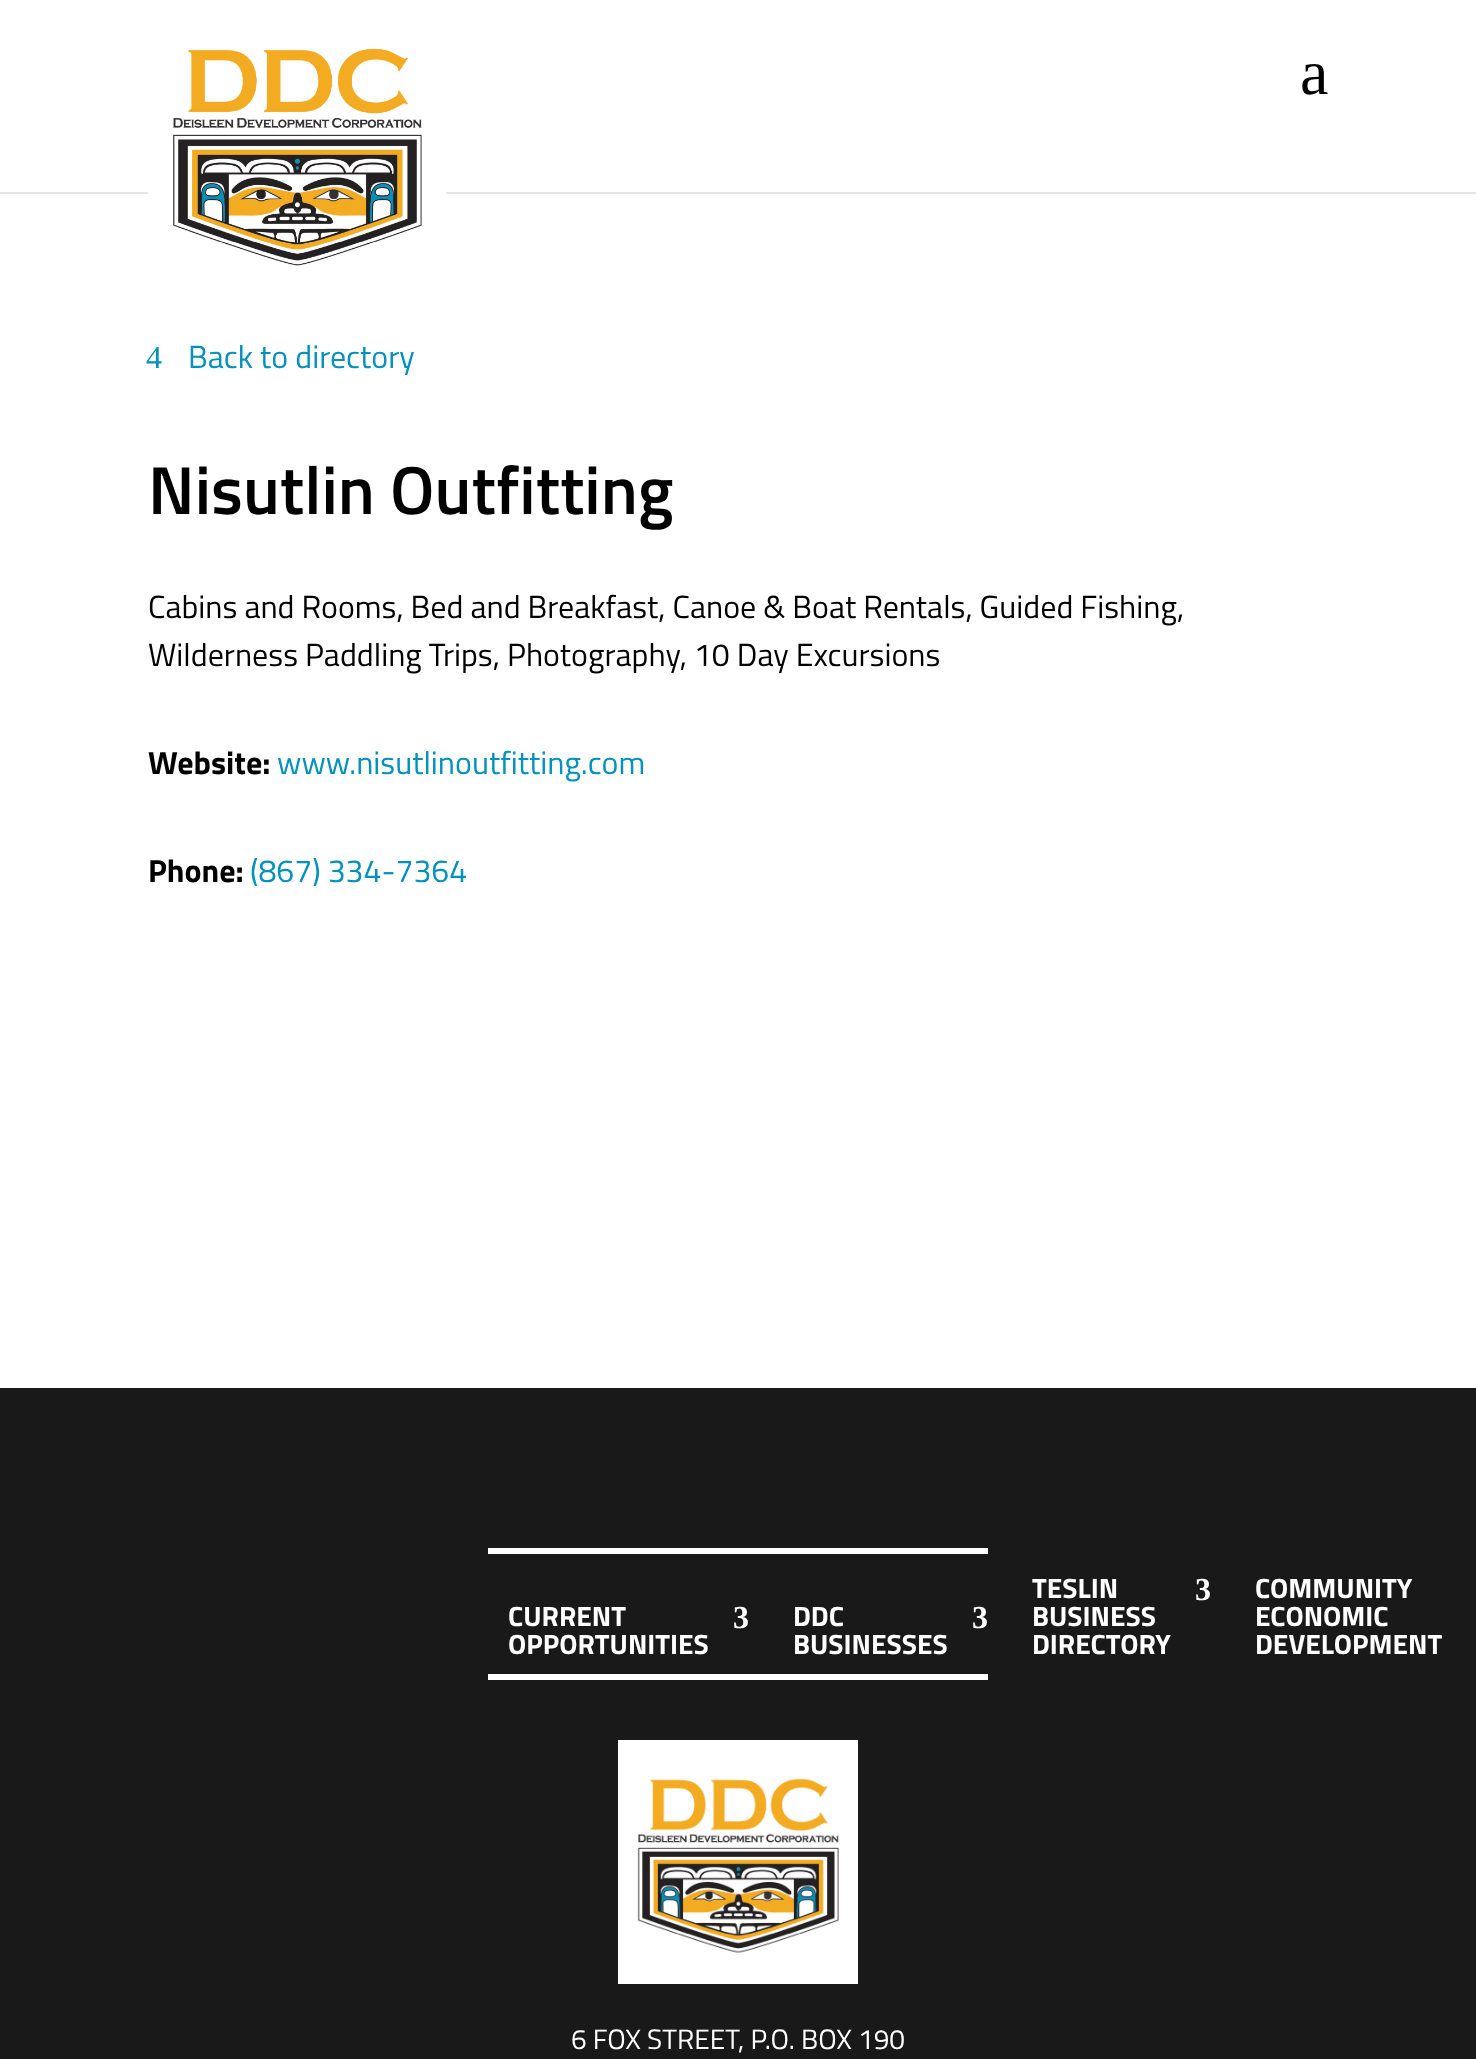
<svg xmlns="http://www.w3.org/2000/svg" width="1476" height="2059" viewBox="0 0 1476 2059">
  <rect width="100%" height="100%" fill="#ffffff"/>
  <rect x="0" y="192" width="1476" height="2" fill="#e6e6e6"/>
  <image x="148" y="48" width="298" height="218" href="img1.png"/>
  <text x="1300" y="94" font-family="Liberation Serif" font-size="64" fill="#000000">a</text>
  <text x="146" y="368" font-family="Liberation Serif" font-size="32" fill="#0091bc">4</text>
  <text x="188" y="368" font-family="Titillium Web" font-size="32" fill="#0091bc">Back to directory</text>
  <text x="148" y="514" font-family="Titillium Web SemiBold" font-size="68" font-weight="600" fill="#000000">Nisutlin Outfitting</text>
  <text x="148" y="618" font-family="Titillium Web" font-size="32" fill="#000000">Cabins and Rooms, Bed and Breakfast, Canoe &amp; Boat Rentals, Guided Fishing,</text>
  <text x="148" y="666" font-family="Titillium Web" font-size="32" fill="#000000">Wilderness Paddling Trips, Photography, 10 Day Excursions</text>
  <text x="148" y="774" font-family="Titillium Web" font-size="32" font-weight="bold" fill="#000000">Website:</text>
  <text x="277" y="774" font-family="Titillium Web" font-size="32" fill="#0091bc">www.nisutlinoutfitting.com</text>
  <text x="148" y="882" font-family="Titillium Web" font-size="32" font-weight="bold" fill="#000000">Phone:</text>
  <text x="250" y="882" font-family="Titillium Web" font-size="32" fill="#0091bc">(867) 334-7364</text>
  <rect x="0" y="1388" width="1476" height="671" fill="#191919"/>
  <rect x="488" y="1548" width="500" height="6" fill="#ffffff"/>
  <rect x="488" y="1674" width="500" height="6" fill="#ffffff"/>
  <text x="508" y="1626" font-family="Titillium Web" font-size="28" font-weight="bold" fill="#ffffff">CURRENT</text>
  <text x="733" y="1628" font-family="Liberation Serif" font-size="32" font-weight="bold" fill="#ffffff">3</text>
  <text x="508" y="1654" font-family="Titillium Web" font-size="28" font-weight="bold" fill="#ffffff">OPPORTUNITIES</text>
  <text x="793" y="1626" font-family="Titillium Web" font-size="28" font-weight="bold" fill="#ffffff">DDC</text>
  <text x="972" y="1628" font-family="Liberation Serif" font-size="32" font-weight="bold" fill="#ffffff">3</text>
  <text x="793" y="1654" font-family="Titillium Web" font-size="28" font-weight="bold" fill="#ffffff">BUSINESSES</text>
  <text x="1032" y="1598" font-family="Titillium Web" font-size="28" font-weight="bold" fill="#ffffff">TESLIN</text>
  <text x="1195" y="1600" font-family="Liberation Serif" font-size="32" font-weight="bold" fill="#ffffff">3</text>
  <text x="1032" y="1626" font-family="Titillium Web" font-size="28" font-weight="bold" fill="#ffffff">BUSINESS</text>
  <text x="1032" y="1654" font-family="Titillium Web" font-size="28" font-weight="bold" fill="#ffffff">DIRECTORY</text>
  <text x="1255" y="1598" font-family="Titillium Web" font-size="28" font-weight="bold" fill="#ffffff">COMMUNITY</text>
  <text x="1255" y="1626" font-family="Titillium Web" font-size="28" font-weight="bold" fill="#ffffff">ECONOMIC</text>
  <text x="1255" y="1654" font-family="Titillium Web" font-size="28" font-weight="bold" fill="#ffffff">DEVELOPMENT</text>
  <rect x="618" y="1740" width="240" height="244" fill="#ffffff"/>
  <image x="637" y="1778" width="202" height="175" href="img2.png"/>
  <text x="571" y="2049" font-family="Titillium Web" font-size="28" fill="#ffffff">6 FOX STREET, P.O. BOX 190</text>
</svg>
